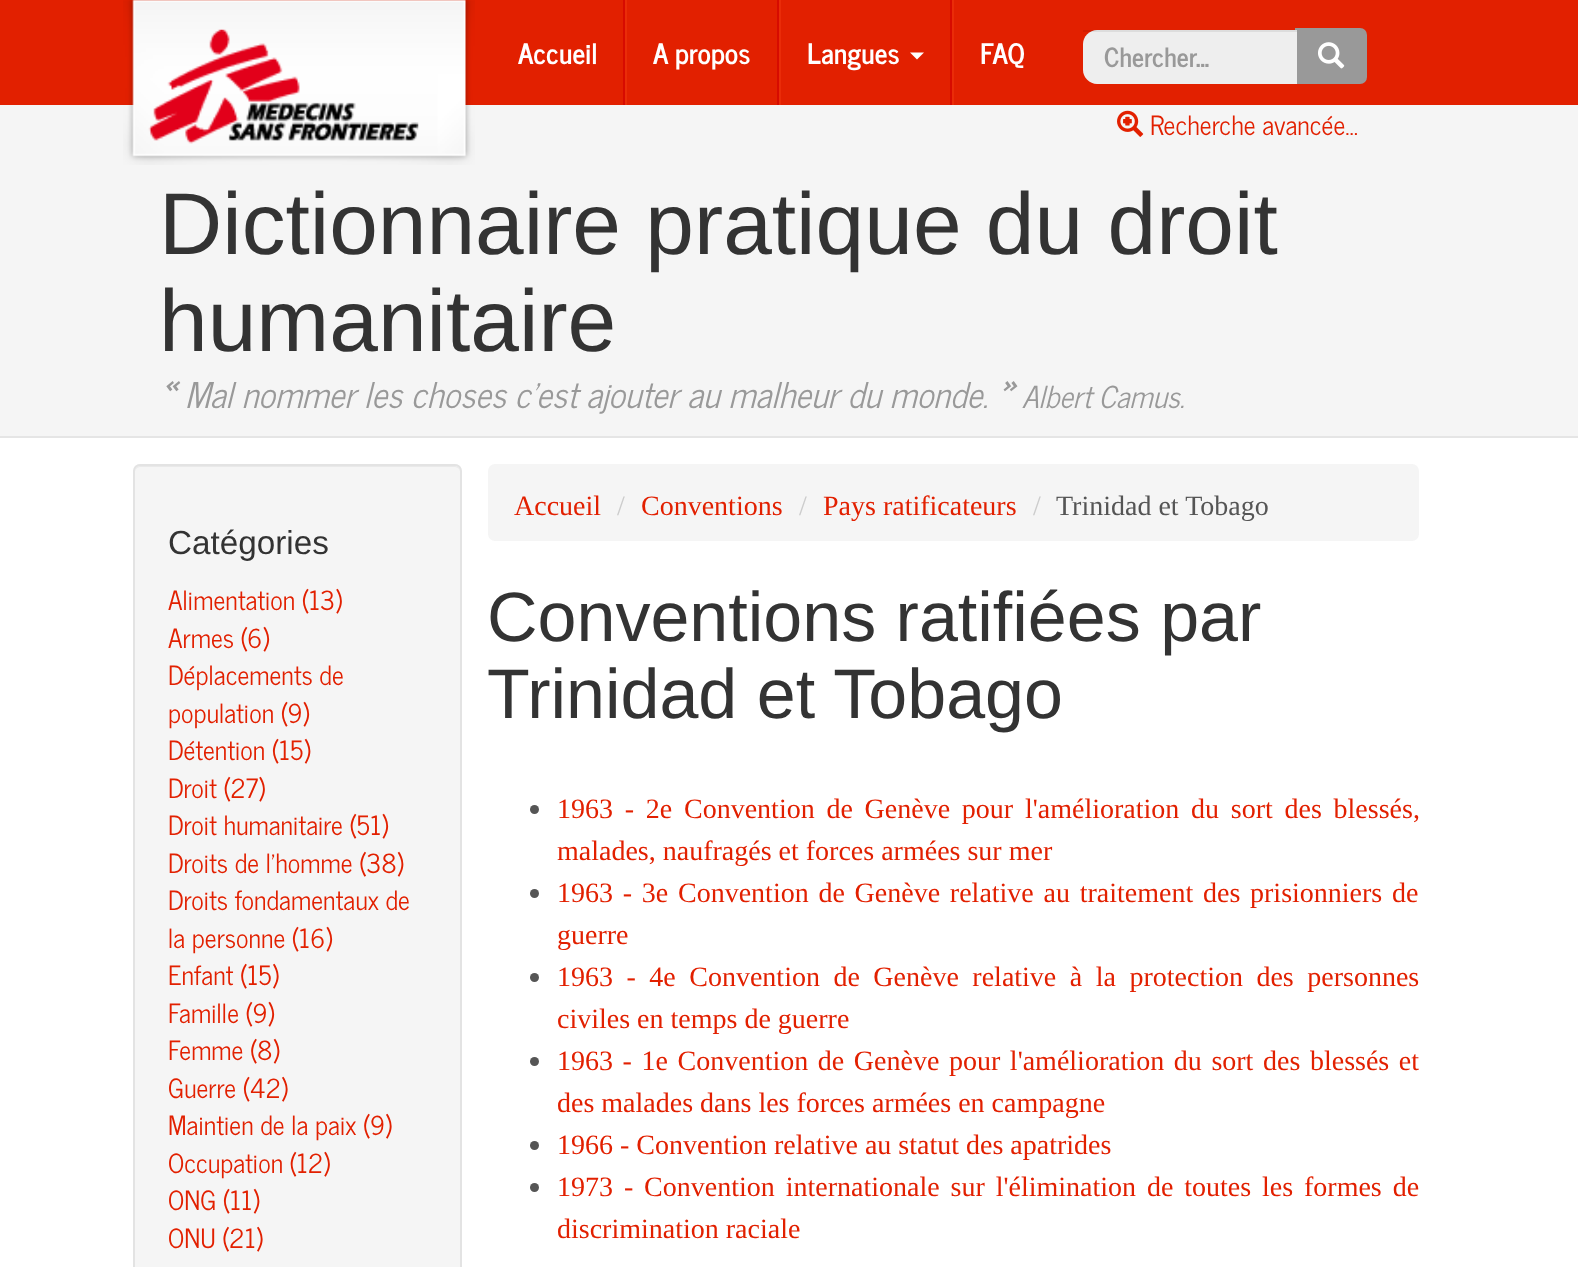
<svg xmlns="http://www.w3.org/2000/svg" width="1578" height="1267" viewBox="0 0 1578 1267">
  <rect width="100%" height="100%" fill="#f5f5f5"/>
  <rect x="0" y="0" width="1578" height="105" fill="#e22000"/>
  <image x="123" y="0" width="352" height="165" href="img1.png"/>
  <image x="148" y="29" width="271" height="115" href="img2.png"/>
  <rect x="623" y="0" width="2" height="105" fill="#d70b00"/>
  <text x="518" y="64" font-family="News Cycle" font-size="28" font-weight="bold" fill="#ffffff">Accueil</text>
  <rect x="777" y="0" width="2" height="105" fill="#d70b00"/>
  <rect x="625" y="0" width="2" height="105" fill="#ea2c08"/>
  <text x="653" y="64" font-family="News Cycle" font-size="28" font-weight="bold" fill="#ffffff">A propos</text>
  <rect x="950" y="0" width="2" height="105" fill="#d70b00"/>
  <rect x="779" y="0" width="2" height="105" fill="#ea2c08"/>
  <text x="807" y="64" font-family="News Cycle" font-size="28" font-weight="bold" fill="#ffffff">Langues</text>
  <path d="M910 52.5H924L917 59.5Z" fill="#ffffff"/>
  <rect x="952" y="0" width="2" height="105" fill="#ea2c08"/>
  <text x="980" y="64" font-family="News Cycle" font-size="28" font-weight="bold" fill="#ffffff">FAQ</text>
  <path d="M1296 29H1360C1363.5 29 1366 31.5 1366 35V77C1366 80.5 1363.5 83 1360 83H1296Z" fill="#999999" stroke="#999999" stroke-width="2"/>
  <path d="M1097 30H1297V84H1097C1089.5 84 1083 77.5 1083 70V44C1083 36.5 1089.5 30 1097 30Z" fill="#eeeeee"/>
  <rect x="1083" y="30" width="214" height="2" fill="#000000" fill-opacity="0.07"/>
  <text x="1104" y="67" font-family="News Cycle" font-size="26.25" font-weight="bold" fill="#999999">Chercher...</text>
  <image x="1318" y="42" width="27" height="27" href="img3.png"/>
  <image x="1117" y="110" width="27" height="27" href="img4.png"/>
  <text x="1150" y="135" font-family="News Cycle" font-size="26.25" fill="#e22000">Recherche avancée...</text>
  <rect x="0" y="436" width="1578" height="2" fill="#e5e5e5"/>
  <text x="159" y="254" font-family="Liberation Sans" font-size="87.5" fill="#333333">Dictionnaire pratique du droit</text>
  <text x="159" y="351" font-family="Liberation Sans" font-size="87.5" fill="#333333">humanitaire</text>
  <text x="159" y="408" font-family="News Cycle" font-size="35" font-weight="bold" font-style="italic" fill="#999999">«</text>
  <text x="185" y="408" font-family="News Cycle" font-size="35" font-style="italic" fill="#999999">Mal nommer les choses c’est ajouter au malheur du monde.</text>
  <text x="997" y="408" font-family="News Cycle" font-size="35" font-weight="bold" font-style="italic" fill="#999999">»</text>
  <text x="1022" y="408" font-family="News Cycle" font-size="30" font-style="italic" fill="#999999">Albert Camus.</text>
  <rect x="0" y="438" width="1578" height="829" fill="#ffffff"/>
  <rect x="133" y="464" width="329" height="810" rx="7" fill="#f5f5f5"/>
  <path d="M140 467H455C458 467 460 470 460 472C460 469 458 466 455 466H140C137 466 135 469 135 472C135 470 137 467 140 467Z" fill="#e9e9e9"/>
  <rect x="134" y="465" width="327" height="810" rx="6" fill="none" stroke="#e3e3e3" stroke-width="2"/>
  <text x="168" y="554" font-family="Liberation Sans" font-size="33.25" fill="#333333">Catégories</text>
  <text x="168" y="610" font-family="News Cycle" font-size="26.25" fill="#e22000">Alimentation (13)</text>
  <text x="168" y="648" font-family="News Cycle" font-size="26.25" fill="#e22000">Armes (6)</text>
  <text x="168" y="685" font-family="News Cycle" font-size="26.25" fill="#e22000">Déplacements de</text>
  <text x="168" y="723" font-family="News Cycle" font-size="26.25" fill="#e22000">population (9)</text>
  <text x="168" y="760" font-family="News Cycle" font-size="26.25" fill="#e22000">Détention (15)</text>
  <text x="168" y="798" font-family="News Cycle" font-size="26.25" fill="#e22000">Droit (27)</text>
  <text x="168" y="835" font-family="News Cycle" font-size="26.25" fill="#e22000">Droit humanitaire (51)</text>
  <text x="168" y="873" font-family="News Cycle" font-size="26.25" fill="#e22000">Droits de l’homme (38)</text>
  <text x="168" y="910" font-family="News Cycle" font-size="26.25" fill="#e22000">Droits fondamentaux de</text>
  <text x="168" y="948" font-family="News Cycle" font-size="26.25" fill="#e22000">la personne (16)</text>
  <text x="168" y="985" font-family="News Cycle" font-size="26.25" fill="#e22000">Enfant (15)</text>
  <text x="168" y="1023" font-family="News Cycle" font-size="26.25" fill="#e22000">Famille (9)</text>
  <text x="168" y="1060" font-family="News Cycle" font-size="26.25" fill="#e22000">Femme (8)</text>
  <text x="168" y="1098" font-family="News Cycle" font-size="26.25" fill="#e22000">Guerre (42)</text>
  <text x="168" y="1135" font-family="News Cycle" font-size="26.25" fill="#e22000">Maintien de la paix (9)</text>
  <text x="168" y="1173" font-family="News Cycle" font-size="26.25" fill="#e22000">Occupation (12)</text>
  <text x="168" y="1210" font-family="News Cycle" font-size="26.25" fill="#e22000">ONG (11)</text>
  <text x="168" y="1248" font-family="News Cycle" font-size="26.25" fill="#e22000">ONU (21)</text>
  <rect x="488" y="464" width="931" height="77" rx="7" fill="#f5f5f5"/>
  <text x="514" y="515" font-family="Liberation Serif" font-size="28" fill="#e22000">Accueil</text>
  <text x="617" y="515" font-family="Liberation Serif" font-size="28" fill="#cccccc">/</text>
  <text x="641" y="515" font-family="Liberation Serif" font-size="28" fill="#e22000">Conventions</text>
  <text x="799" y="515" font-family="Liberation Serif" font-size="28" fill="#cccccc">/</text>
  <text x="823" y="515" font-family="Liberation Serif" font-size="28" fill="#e22000">Pays ratificateurs</text>
  <text x="1033" y="515" font-family="Liberation Serif" font-size="28" fill="#cccccc">/</text>
  <text x="1056" y="515" font-family="Liberation Serif" font-size="28" fill="#555555">Trinidad et Tobago</text>
  <text x="487" y="641" font-family="Liberation Sans" font-size="70" fill="#333333">Conventions ratifiées par</text>
  <text x="487" y="718" font-family="Liberation Sans" font-size="70" fill="#333333">Trinidad et Tobago</text>
  <circle cx="534.5" cy="809.5" r="4.5" fill="#555555"/>
  <text x="557" y="818" word-spacing="4.75" font-family="Liberation Serif" font-size="28" fill="#e22000">1963 - 2e Convention de Genève pour l'amélioration du sort des blessés,</text>
  <text x="557" y="860" font-family="Liberation Serif" font-size="28" fill="#e22000">malades, naufragés et forces armées sur mer</text>
  <circle cx="534.5" cy="893.5" r="4.5" fill="#555555"/>
  <text x="557" y="902" word-spacing="2.75" font-family="Liberation Serif" font-size="28" fill="#e22000">1963 - 3e Convention de Genève relative au traitement des prisionniers de</text>
  <text x="557" y="944" font-family="Liberation Serif" font-size="28" fill="#e22000">guerre</text>
  <circle cx="534.5" cy="977.5" r="4.5" fill="#555555"/>
  <text x="557" y="986" word-spacing="6.5" font-family="Liberation Serif" font-size="28" fill="#e22000">1963 - 4e Convention de Genève relative à la protection des personnes</text>
  <text x="557" y="1028" font-family="Liberation Serif" font-size="28" fill="#e22000">civiles en temps de guerre</text>
  <circle cx="534.5" cy="1061.5" r="4.5" fill="#555555"/>
  <text x="557" y="1070" word-spacing="2.6" font-family="Liberation Serif" font-size="28" fill="#e22000">1963 - 1e Convention de Genève pour l'amélioration du sort des blessés et</text>
  <text x="557" y="1112" font-family="Liberation Serif" font-size="28" fill="#e22000">des malades dans les forces armées en campagne</text>
  <circle cx="534.5" cy="1145.5" r="4.5" fill="#555555"/>
  <text x="557" y="1154" font-family="Liberation Serif" font-size="28" fill="#e22000">1966 - Convention relative au statut des apatrides</text>
  <circle cx="534.5" cy="1187.5" r="4.5" fill="#555555"/>
  <text x="557" y="1196" word-spacing="3.9" font-family="Liberation Serif" font-size="28" fill="#e22000">1973 - Convention internationale sur l'élimination de toutes les formes de</text>
  <text x="557" y="1238" font-family="Liberation Serif" font-size="28" fill="#e22000">discrimination raciale</text>
</svg>
